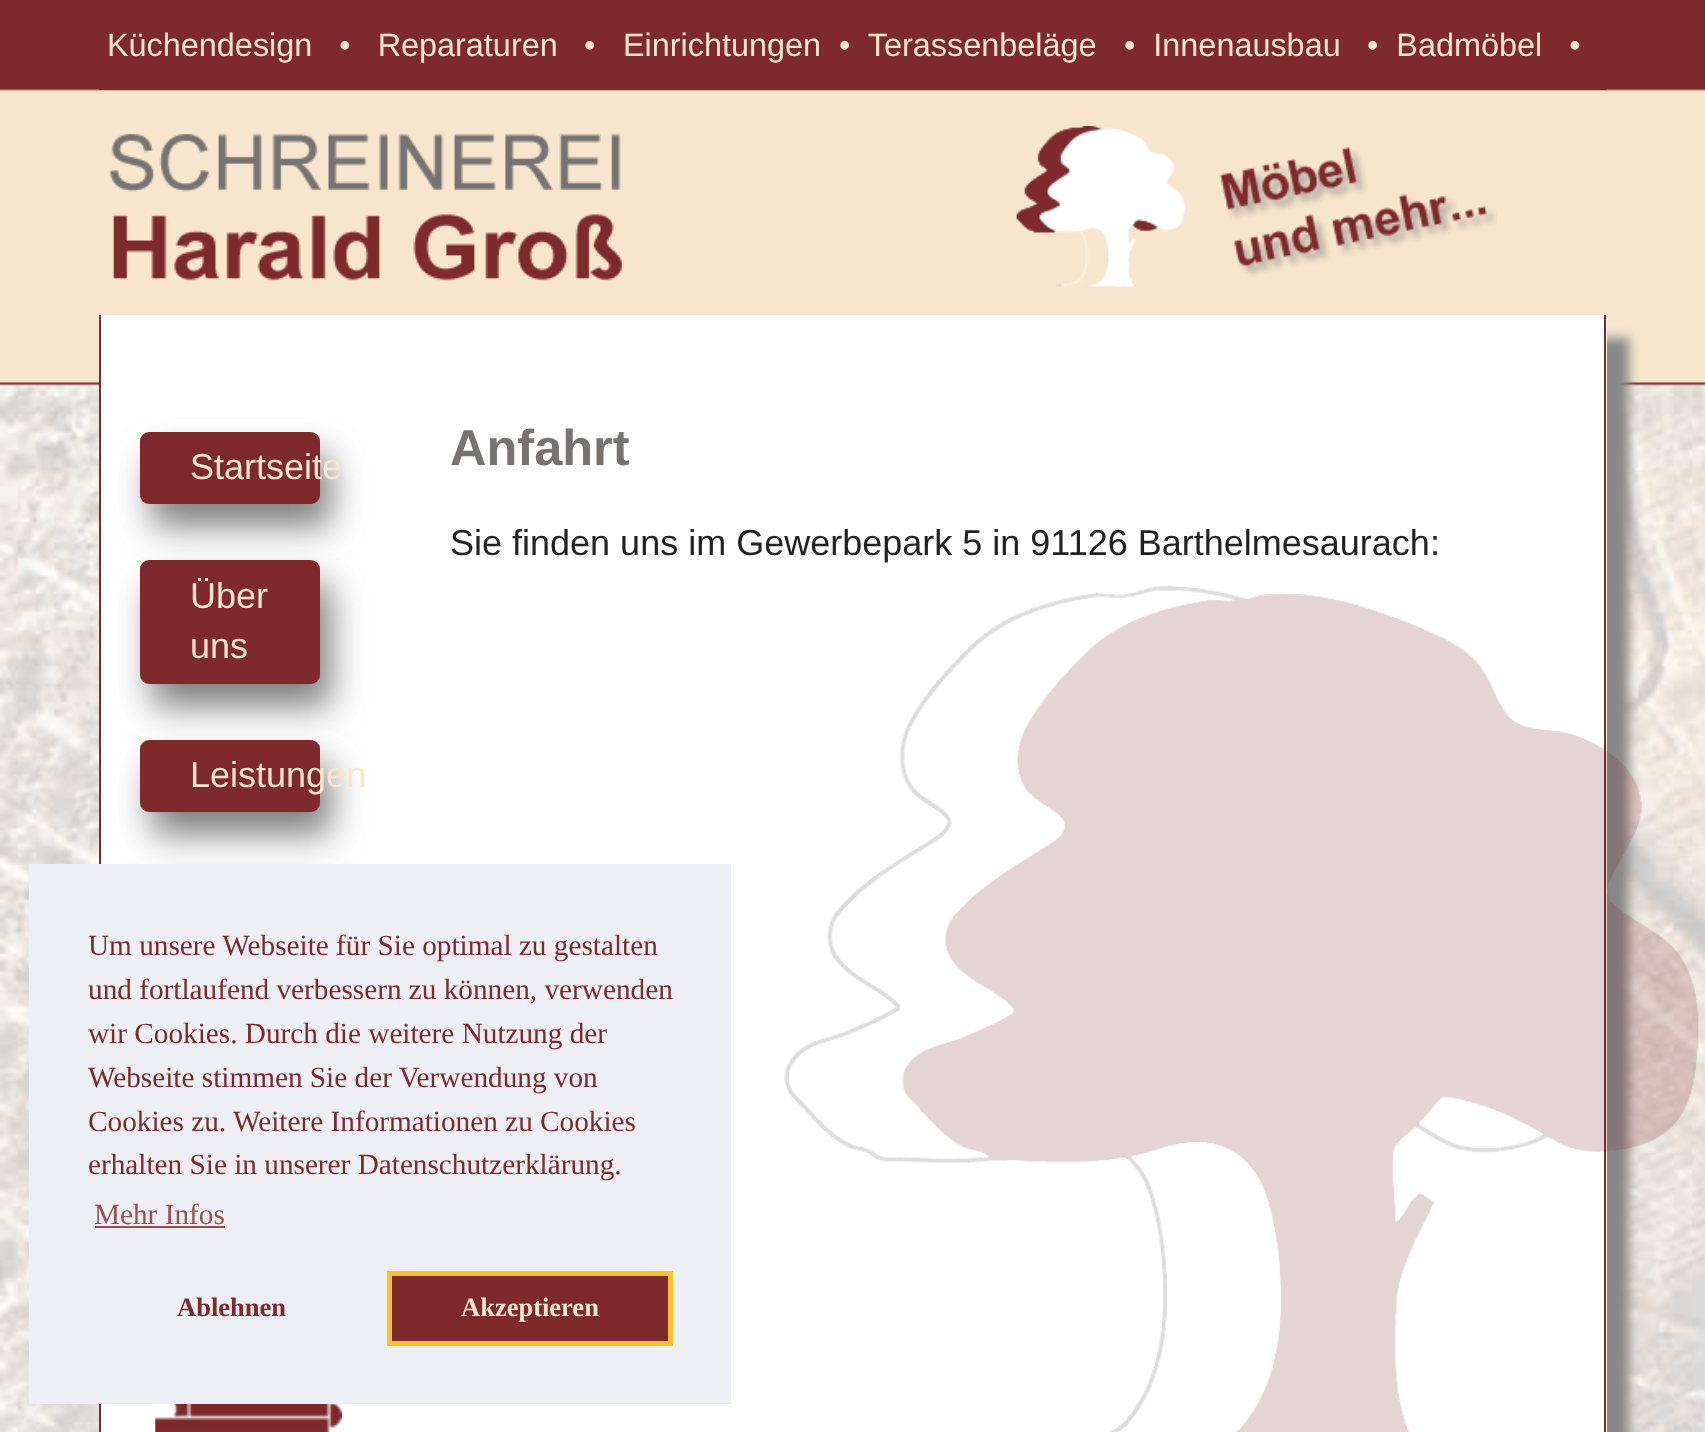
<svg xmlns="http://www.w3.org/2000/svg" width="1705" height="1432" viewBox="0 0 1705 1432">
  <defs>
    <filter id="blur1" x="-50%" y="-200%" width="200%" height="500%"><feGaussianBlur stdDeviation="5.5"/></filter>
    <filter id="blur2" x="-50%" y="-200%" width="200%" height="500%"><feGaussianBlur stdDeviation="17"/></filter>
  </defs>
  <rect width="100%" height="100%" fill="#ffffff"/>
  <image x="0" y="0" width="1705" height="1432" href="img1.png"/>
  <rect x="99" y="89" width="1508" height="1" fill="#7e292c"/>
  <text x="107" y="56" font-family="Liberation Sans" font-size="32.4" fill="#f7e5cd" xml:space="preserve">Küchendesign   •   Reparaturen</text>
  <text x="584" y="56" font-family="Liberation Sans" font-size="32.4" fill="#f7e5cd">•</text>
  <text x="623" y="56" font-family="Liberation Sans" font-size="32.4" fill="#f7e5cd" xml:space="preserve">Einrichtungen  •  Terassenbeläge</text>
  <text x="1124" y="56" font-family="Liberation Sans" font-size="32.4" fill="#f7e5cd" xml:space="preserve">•  Innenausbau</text>
  <text x="1367" y="56" font-family="Liberation Sans" font-size="32.4" fill="#f7e5cd" xml:space="preserve">•  Badmöbel   •</text>
  <image x="110" y="126" width="1387" height="161" href="img2.png"/>
  <rect x="122" y="338" width="1507" height="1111" fill="#888888" filter="url(#blur1)"/>
  <rect x="101" y="315" width="1506" height="1117" fill="#ffffff"/>
  <rect x="99" y="315" width="2" height="1117" fill="#7e292c"/>
  <rect x="151" y="455" width="180" height="72" rx="9" fill="#808080" filter="url(#blur2)"/>
  <rect x="140" y="432" width="180" height="72" rx="9" fill="#7e292c"/>
  <text x="190" y="479" font-family="Liberation Sans" font-size="36" fill="#f7e5cd">Startseite</text>
  <rect x="151" y="583" width="180" height="124" rx="9" fill="#808080" filter="url(#blur2)"/>
  <rect x="140" y="560" width="180" height="124" rx="9" fill="#7e292c"/>
  <text x="190" y="608" font-family="Liberation Sans" font-size="36" fill="#f7e5cd">Über</text>
  <text x="190" y="658" font-family="Liberation Sans" font-size="36" fill="#f7e5cd">uns</text>
  <rect x="151" y="763" width="180" height="72" rx="9" fill="#808080" filter="url(#blur2)"/>
  <rect x="140" y="740" width="180" height="72" rx="9" fill="#7e292c"/>
  <text x="190" y="787" font-family="Liberation Sans" font-size="36" fill="#f7e5cd">Leistungen</text>
  <rect x="151" y="891" width="180" height="74" rx="9" fill="#808080" filter="url(#blur2)"/>
  <image x="155" y="1404" width="187" height="28" href="img3.png"/>
  <rect x="1604" y="315" width="2" height="1117" fill="#7e292c"/>
  <text x="450" y="465" font-family="Liberation Sans" font-size="50.5" font-weight="bold" fill="#767372">Anfahrt</text>
  <text x="450" y="555" font-family="Liberation Sans" font-size="36" fill="#222222">Sie finden uns im Gewerbepark 5 in 91126 Barthelmesaurach:</text>
  <image x="784" y="585" width="915" height="847" href="img4.png"/>
  <rect x="29" y="864" width="702" height="540" fill="#edeff5"/>
  <text x="88" y="955" font-family="Liberation Serif" font-size="29.25" fill="#7e292c">Um unsere Webseite für Sie optimal zu gestalten</text>
  <text x="88" y="999" font-family="Liberation Serif" font-size="29.25" fill="#7e292c">und fortlaufend verbessern zu können, verwenden</text>
  <text x="88" y="1043" font-family="Liberation Serif" font-size="29.25" fill="#7e292c">wir Cookies. Durch die weitere Nutzung der</text>
  <text x="88" y="1087" font-family="Liberation Serif" font-size="29.25" fill="#7e292c">Webseite stimmen Sie der Verwendung von</text>
  <text x="88" y="1131" font-family="Liberation Serif" font-size="29.25" fill="#7e292c">Cookies zu.</text>
  <text x="233" y="1131" font-family="Liberation Serif" font-size="29.25" fill="#7e292c">Weitere Informationen zu Cookies</text>
  <text x="88" y="1174" font-family="Liberation Serif" font-size="29.25" fill="#7e292c">erhalten Sie in unserer Datenschutzerklärung.</text>
  <text x="94" y="1224" font-family="Liberation Serif" font-size="29.25" fill="#945154">Mehr Infos</text>
  <rect x="95" y="1226" width="130" height="2" fill="#945154"/>
  <text x="177" y="1316" font-family="Liberation Serif" font-size="26.5" font-weight="bold" fill="#7e292c">Ablehnen</text>
  <rect x="389.5" y="1273.5" width="281" height="70" fill="#7e292c" stroke="#f8c129" stroke-width="5"/>
  <text x="461" y="1316" font-family="Liberation Serif" font-size="26.5" font-weight="bold" fill="#f7e5cd">Akzeptieren</text>
</svg>
